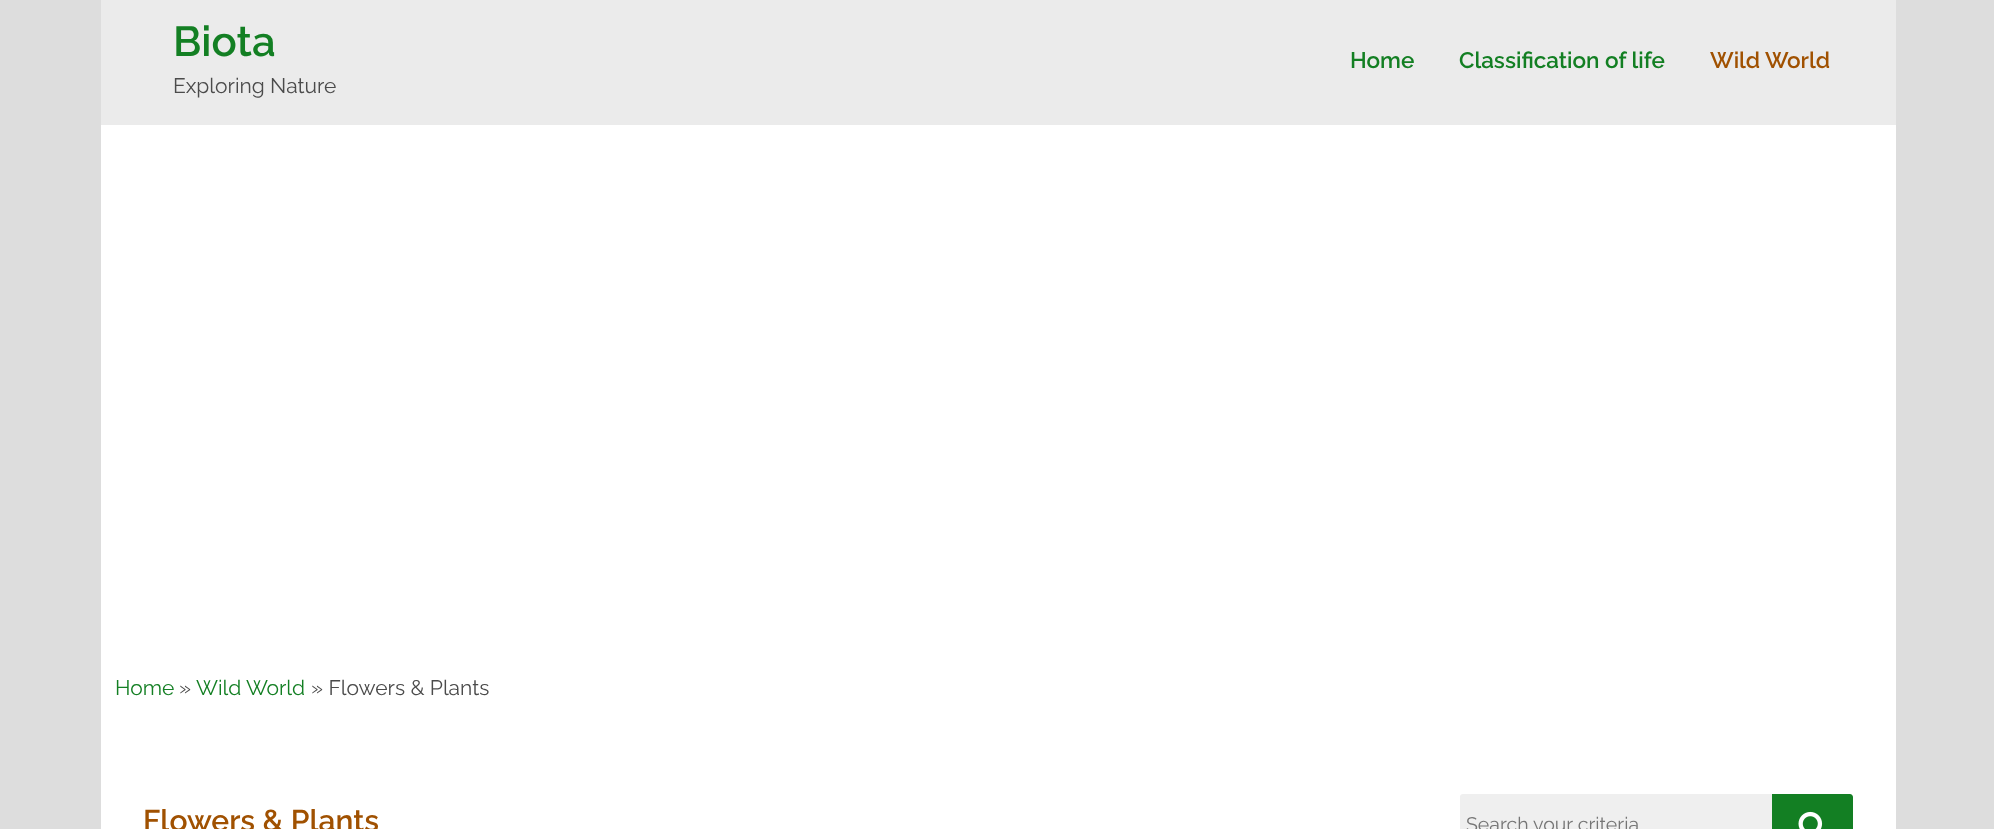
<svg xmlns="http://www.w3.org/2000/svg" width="1994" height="829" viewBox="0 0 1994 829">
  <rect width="100%" height="100%" fill="#dddddd"/>
  <rect x="101" y="0" width="1795" height="125" fill="#ebebeb"/>
  <text x="173" y="56" font-family="Raleway" font-size="42" font-weight="600" fill="#137f23">Biota</text>
  <text x="173" y="93" font-family="Raleway" font-size="21" fill="#4b4b4b">Exploring Nature</text>
  <text x="1350" y="68" font-family="Raleway" font-size="22.5" font-weight="600" fill="#137f23">Home</text>
  <text x="1459" y="68" font-family="Raleway" font-size="22.5" font-weight="600" fill="#137f23">Classification of life</text>
  <text x="1710" y="68" font-family="Raleway" font-size="22.5" font-weight="600" fill="#a05101">Wild World</text>
  <rect x="101" y="125" width="1795" height="704" fill="#ffffff"/>
  <text x="115" y="695" font-family="Raleway" font-size="21" fill="#137f23">Home</text>
  <text x="179" y="695" font-family="Raleway" font-size="21" fill="#4b4b4b">»</text>
  <text x="196" y="695" font-family="Raleway" font-size="21" fill="#137f23">Wild World</text>
  <text x="311" y="695" font-family="Raleway" font-size="21" fill="#4b4b4b">» Flowers &amp; Plants</text>
  <text x="143" y="831" font-family="Raleway" font-size="30" font-weight="600" fill="#a05101">Flowers &amp; Plants</text>
  <rect x="1460" y="794" width="393" height="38" rx="3" fill="#efefef"/>
  <path d="M1772 794H1850C1851.5 794 1853 795.5 1853 797V829C1853 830.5 1851.5 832 1850 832H1772Z" fill="#137f23"/>
  <text x="1466" y="831" font-family="Raleway" font-size="19.5" fill="#757575">Search your criteria</text>
  <image x="1798" y="811" width="25" height="18" href="img1.png"/>
</svg>
